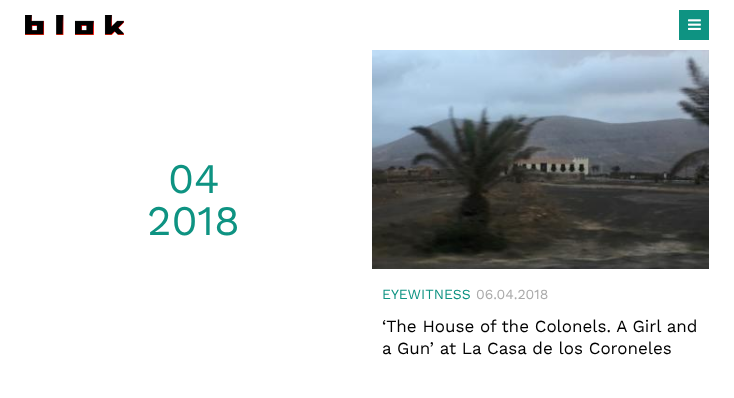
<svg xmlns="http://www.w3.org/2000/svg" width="734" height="398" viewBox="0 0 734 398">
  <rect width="100%" height="100%" fill="#ffffff"/>
  <image x="25" y="15" width="99" height="20" href="img1.png"/>
  <rect x="679" y="10" width="30" height="30" fill="#0e9382"/>
  <image x="688" y="19" width="13" height="11" href="img2.png"/>
  <text x="168" y="193" font-family="Work Sans" font-size="42" fill="#0e9382">04</text>
  <text x="147" y="235" font-family="Work Sans" font-size="42" fill="#0e9382">2018</text>
  <image x="372" y="50" width="337" height="219" href="img3.png"/>
  <text x="382" y="299" font-family="Work Sans" font-size="14" fill="#0e9382">EYEWITNESS</text>
  <text x="476" y="299" font-family="Work Sans" font-size="14" fill="#aaaaaa">06.04.2018</text>
  <text x="382" y="332" font-family="Work Sans" font-size="17" fill="#000000">‘The House of the Colonels. A Girl and</text>
  <text x="382" y="354" font-family="Work Sans" font-size="17" fill="#000000">a Gun’ at La Casa de los Coroneles</text>
</svg>
